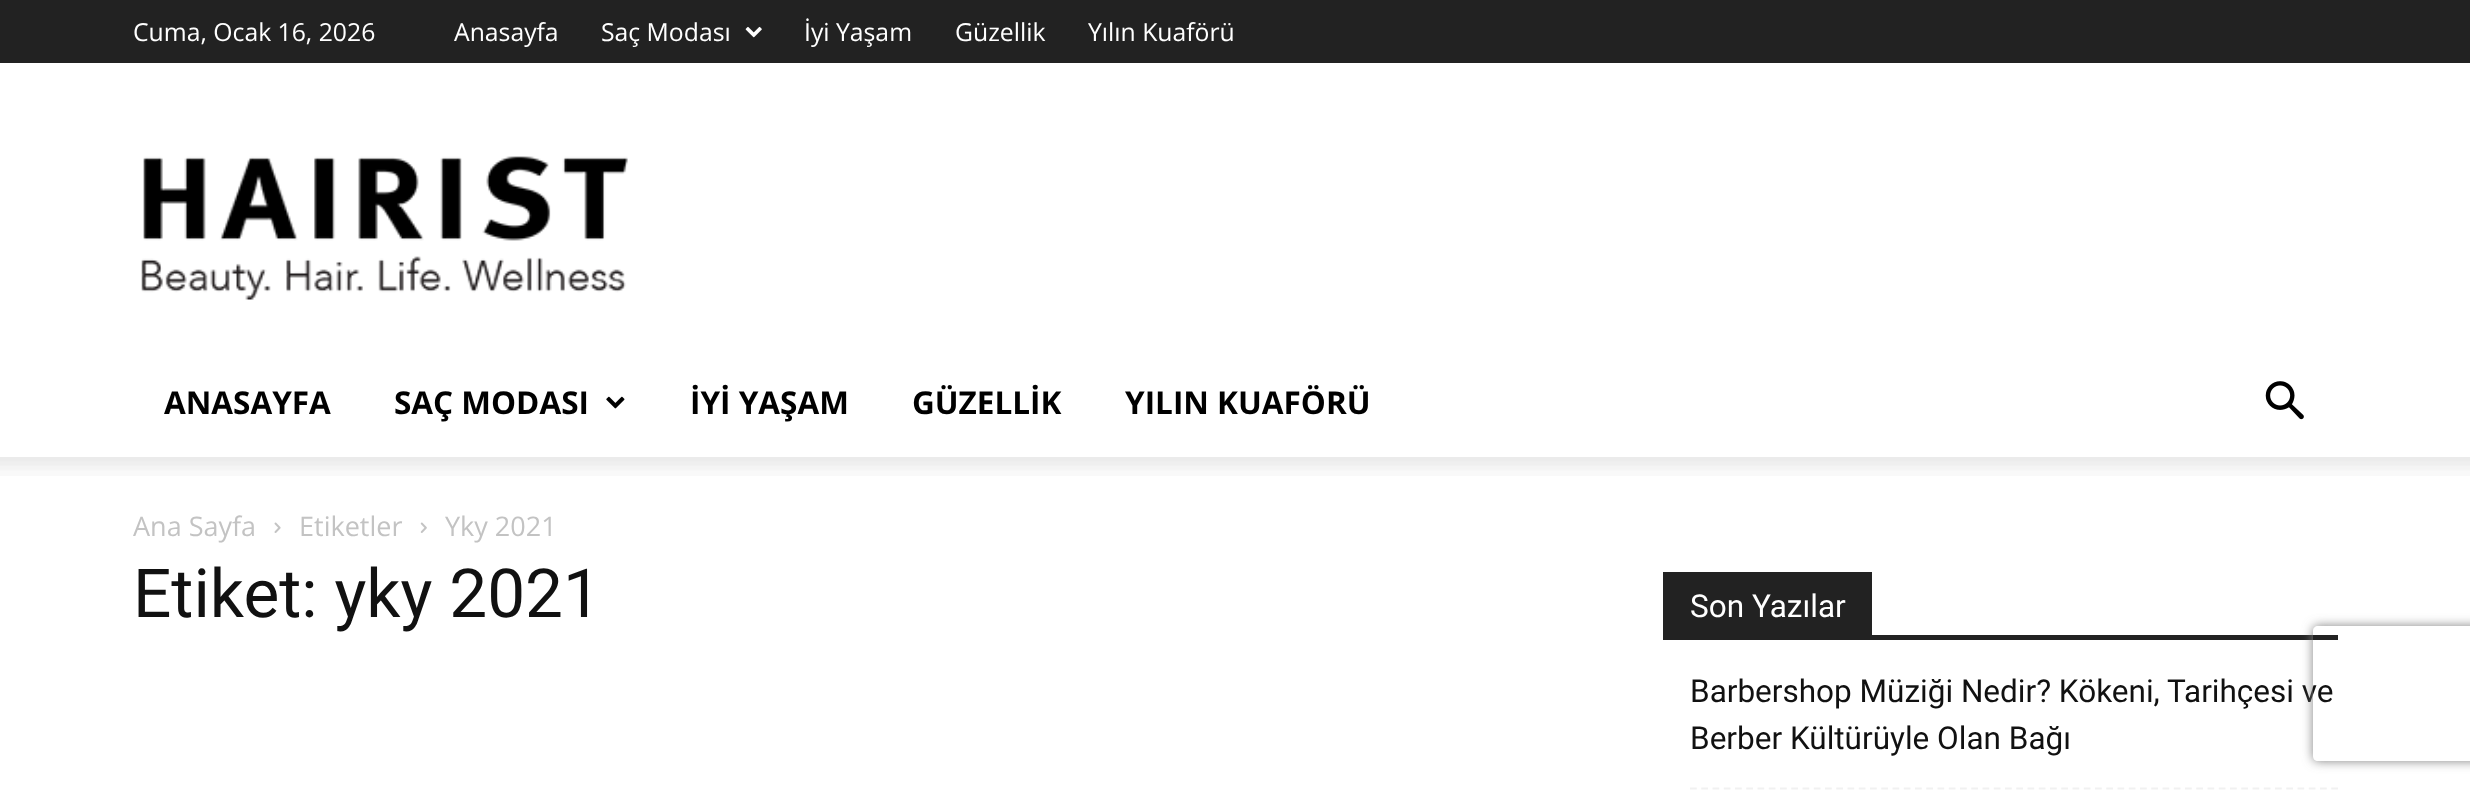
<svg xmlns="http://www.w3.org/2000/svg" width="2470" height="792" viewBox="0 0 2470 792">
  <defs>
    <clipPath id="clip1"><path d="M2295 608H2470V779H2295ZM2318 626H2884C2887 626 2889 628 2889 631V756C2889 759 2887 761 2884 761H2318C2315 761 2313 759 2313 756V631C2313 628 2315 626 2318 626Z" clip-rule="evenodd"/></clipPath>
    <filter id="blur1" x="-50%" y="-200%" width="200%" height="500%"><feGaussianBlur stdDeviation="5.5"/></filter>
  </defs>
  <rect width="100%" height="100%" fill="#ffffff"/>
  <rect x="0" y="0" width="2470" height="63" fill="#222222"/>
  <text x="133" y="41" font-family="Open Sans" font-size="24.75" fill="#ffffff">Cuma, Ocak 16, 2026</text>
  <text x="454" y="41" font-family="Open Sans" font-size="24.75" fill="#ffffff">Anasayfa</text>
  <text x="601" y="41" font-family="Open Sans" font-size="24.75" fill="#ffffff">Saç Modası</text>
  <image x="745" y="26" width="17" height="12" href="img1.png"/>
  <text x="804" y="41" font-family="Open Sans" font-size="24.75" fill="#ffffff">İyi Yaşam</text>
  <text x="955" y="41" font-family="Open Sans" font-size="24.75" fill="#ffffff">Güzellik</text>
  <text x="1088" y="41" font-family="Open Sans" font-size="24.75" fill="#ffffff">Yılın Kuaförü</text>
  <image x="141" y="156" width="487" height="144" href="img2.png"/>
  <text x="164" y="414" font-family="Open Sans" font-size="31.5" font-weight="bold" fill="#000000">ANASAYFA</text>
  <text x="394" y="414" font-family="Open Sans" font-size="31.5" font-weight="bold" fill="#000000">SAÇ MODASI</text>
  <image x="606" y="396" width="19" height="13" href="img3.png"/>
  <text x="690" y="414" font-family="Open Sans" font-size="31.5" font-weight="bold" fill="#000000">İYİ YAŞAM</text>
  <text x="912" y="414" font-family="Open Sans" font-size="31.5" font-weight="bold" fill="#000000">GÜZELLİK</text>
  <text x="1125" y="414" font-family="Open Sans" font-size="31.5" font-weight="bold" fill="#000000">YILIN KUAFÖRÜ</text>
  <image x="2265" y="381" width="39" height="39" href="img4.png"/>
  <image x="0" y="457" width="2470" height="19" href="img5.png"/>
  <text x="133" y="536" font-family="Open Sans" font-size="27" fill="#c3c3c3">Ana Sayfa</text>
  <image x="274" y="522" width="7" height="11" href="img6.png"/>
  <text x="299" y="536" font-family="Open Sans" font-size="27" fill="#c3c3c3">Etiketler</text>
  <image x="420" y="522" width="7" height="11" href="img7.png"/>
  <text x="445" y="536" font-family="Open Sans" font-size="27" fill="#c3c3c3">Yky 2021</text>
  <text x="133" y="617" font-family="Roboto" font-size="67.5" fill="#111111">Etiket: yky 2021</text>
  <rect x="1663" y="635" width="675" height="5" fill="#222222"/>
  <rect x="1663" y="572" width="209" height="63" fill="#222222"/>
  <text x="1690" y="617" font-family="Roboto" font-size="31.5" fill="#ffffff">Son Yazılar</text>
  <path d="M1690 788.5H2338" fill="none" stroke="#f1f1f1" stroke-width="2.2" stroke-dasharray="6.75 4.5"/>
  <text x="1690" y="702" font-family="Roboto" font-size="31.5" fill="#111111">Barbershop Müziği Nedir? Kökeni, Tarihçesi ve</text>
  <text x="1690" y="749" font-family="Roboto" font-size="31.5" fill="#111111">Berber Kültürüyle Olan Bağı</text>
  <g clip-path="url(#clip1)">
    <rect x="2313" y="626" width="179" height="135" rx="5" fill="#808080" filter="url(#blur1)"/>
  </g>
</svg>
